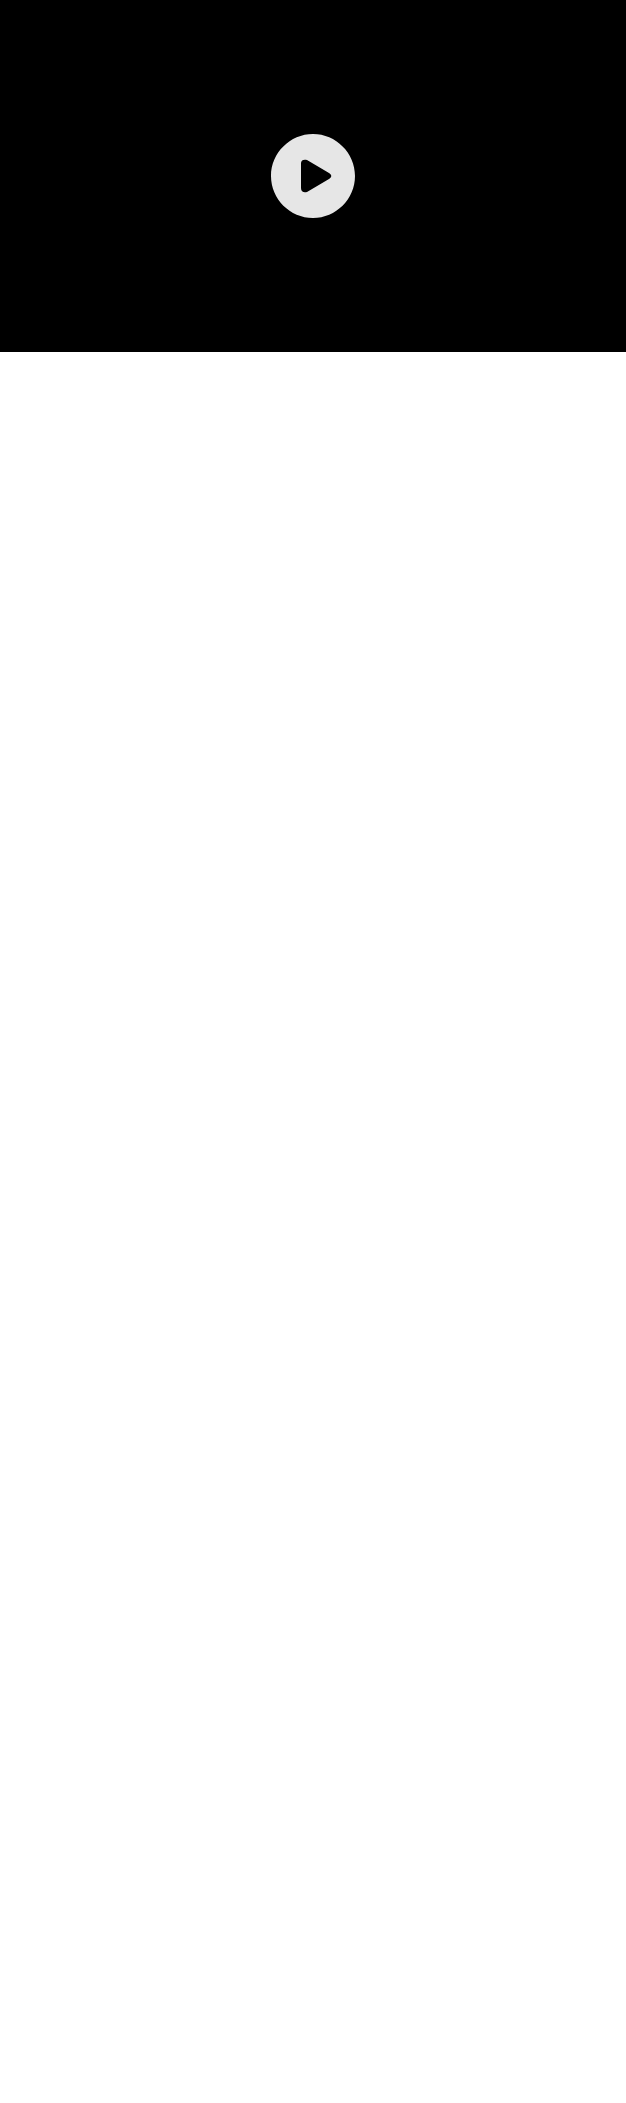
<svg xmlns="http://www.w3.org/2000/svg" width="626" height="2103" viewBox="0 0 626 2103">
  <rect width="100%" height="100%" fill="#ffffff"/>
  <rect x="0" y="0" width="626" height="352" fill="#000000"/>
  <path d="M329 179L307 192C304 193 301 192 301 188V163C301 160 304 159 307 160L329 173C332 175 332 177 329 179M313 134C290 134 271 153 271 176C271 199 290 218 313 218C336 218 355 199 355 176C355 153 336 134 313 134" fill="#e6e6e6"/>
</svg>
